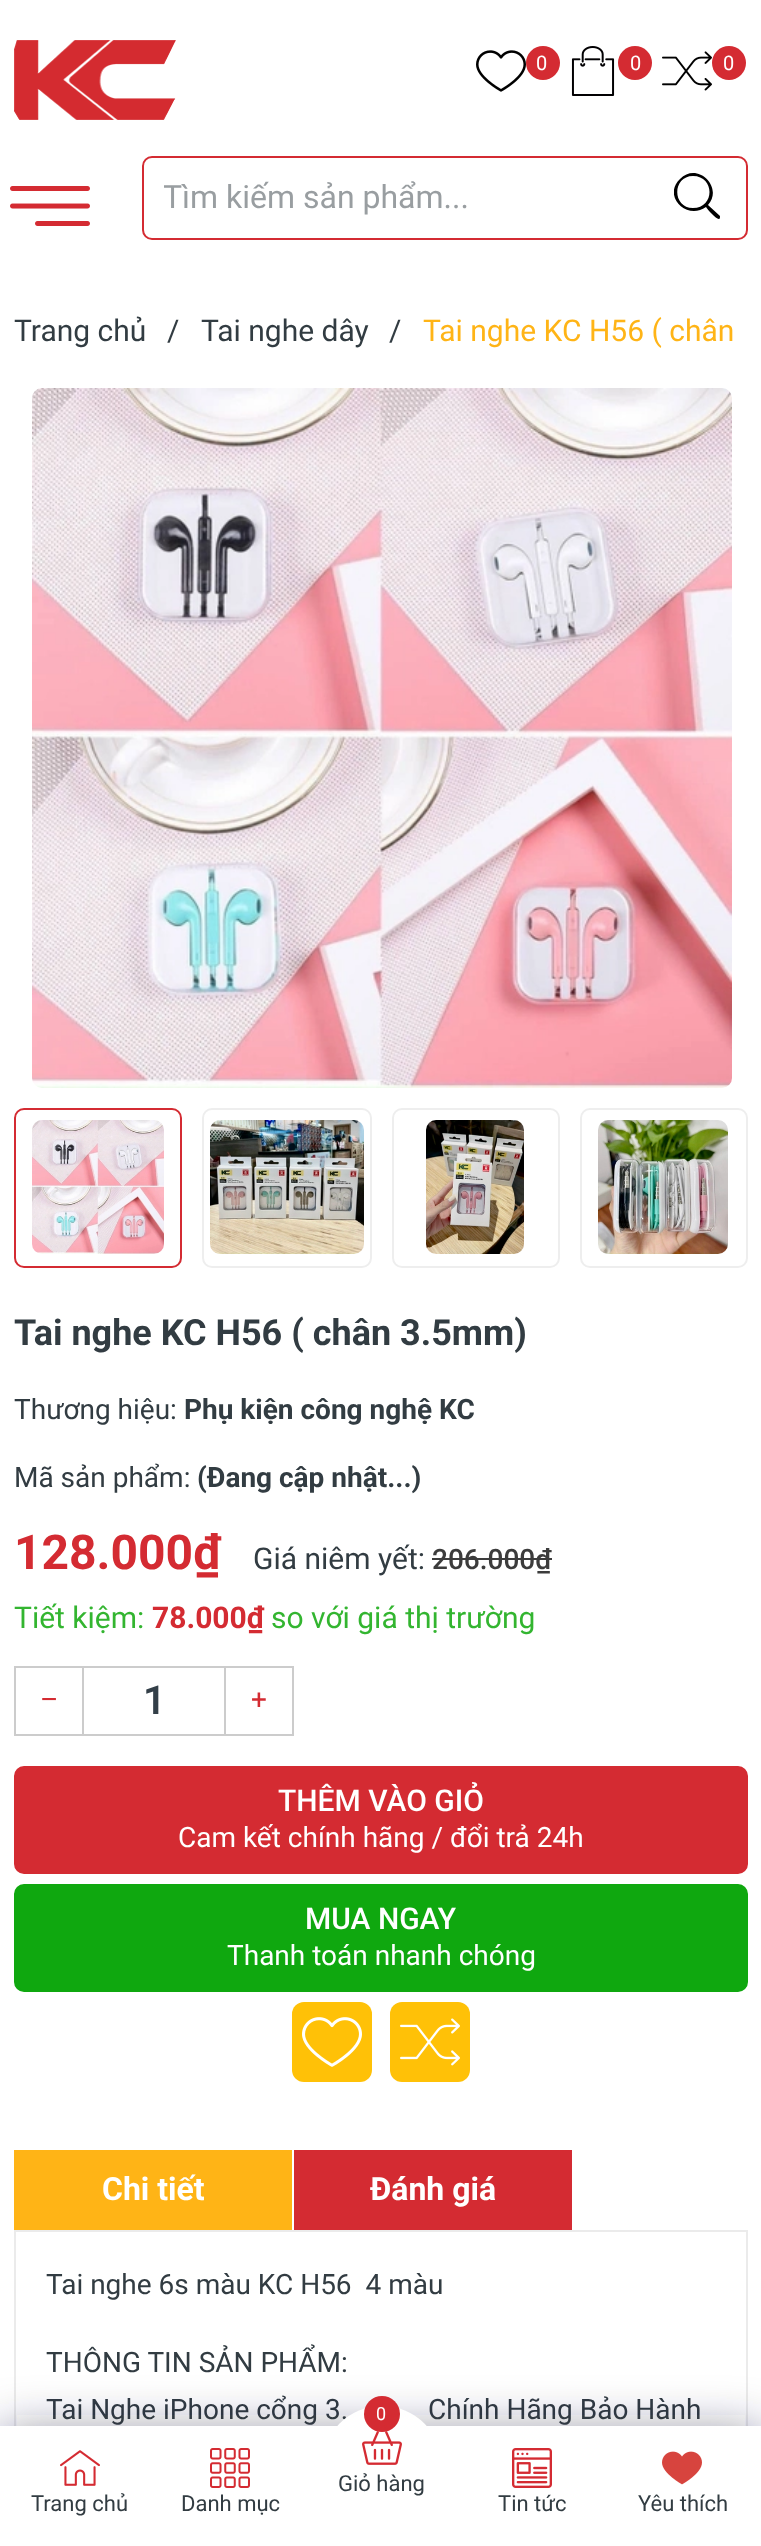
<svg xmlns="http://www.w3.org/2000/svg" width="761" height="2546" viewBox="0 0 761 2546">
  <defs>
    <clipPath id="clip1"><rect x="164" y="178" width="492" height="38"/></clipPath>
    <clipPath id="clip2"><rect x="674" y="166" width="46" height="60"/></clipPath>
    <filter id="blur1" x="-50%" y="-200%" width="200%" height="500%"><feGaussianBlur stdDeviation="25"/></filter>
  </defs>
  <rect width="100%" height="100%" fill="#ffffff"/>
  <image x="14" y="40" width="162" height="80" href="img1.png"/>
  <image x="476" y="50" width="50" height="42" href="img2.png"/>
  <circle cx="543" cy="63" r="17" fill="#d42b32"/>
  <text x="536" y="70" font-family="Roboto" font-size="20" fill="#ffffff">0</text>
  <image x="571" y="46" width="44" height="50" href="img3.png"/>
  <circle cx="635" cy="63" r="17" fill="#d42b32"/>
  <text x="630" y="70" font-family="Roboto" font-size="20" fill="#ffffff">0</text>
  <image x="662" y="51" width="50" height="40" href="img4.png"/>
  <circle cx="729" cy="63" r="17" fill="#d42b32"/>
  <text x="723" y="70" font-family="Roboto" font-size="20" fill="#ffffff">0</text>
  <image x="10" y="186" width="80" height="40" href="img5.png"/>
  <rect x="143" y="157" width="604" height="82" rx="9" fill="none" stroke="#d42b32" stroke-width="2"/>
  <g clip-path="url(#clip1)">
    <text x="163" y="208" font-family="Roboto" font-size="32" fill="#999ea1">Tìm kiếm sản phẩm...</text>
  </g>
  <g clip-path="url(#clip2)">
    <path d="M720 216L708 205C724 187 697 161 680 179C662 196 687 221 706 207C707 209 717 220 719 219C720 219 720 217 720 216ZM693 208C672 208 672 176 693 176C715 176 715 208 693 208Z" fill="#000000"/>
  </g>
  <text x="14" y="341" font-family="Roboto" font-size="30" fill="#323c42">Trang chủ</text>
  <text x="167" y="341" font-family="Roboto" font-size="30" fill="#323c42">/</text>
  <text x="201" y="341" font-family="Roboto" font-size="30" fill="#323c42">Tai nghe dây</text>
  <text x="389" y="341" font-family="Roboto" font-size="30" fill="#323c42">/</text>
  <text x="423" y="341" font-family="Roboto" font-size="30" fill="#ffb416">Tai nghe KC H56 ( chân</text>
  <image x="32" y="388" width="700" height="700" href="img6.png"/>
  <rect x="15" y="1109" width="166" height="158" rx="9" fill="none" stroke="#d42b32" stroke-width="2"/>
  <image x="32" y="1120" width="132" height="134" href="img7.png"/>
  <rect x="203" y="1109" width="168" height="158" rx="9" fill="none" stroke="#eeeeee" stroke-width="2"/>
  <image x="210" y="1120" width="154" height="134" href="img8.png"/>
  <rect x="393" y="1109" width="166" height="158" rx="9" fill="none" stroke="#eeeeee" stroke-width="2"/>
  <image x="426" y="1120" width="98" height="134" href="img9.png"/>
  <rect x="581" y="1109" width="166" height="158" rx="9" fill="none" stroke="#eeeeee" stroke-width="2"/>
  <image x="598" y="1120" width="130" height="134" href="img10.png"/>
  <text x="14" y="1345" font-family="Roboto" font-size="36" font-weight="bold" fill="#323c42">Tai nghe KC H56 ( chân 3.5mm)</text>
  <text x="14" y="1419" font-family="Roboto" font-size="28" fill="#323c42">Thương hiệu:</text>
  <text x="184" y="1419" font-family="Roboto" font-size="28" font-weight="bold" fill="#323c42">Phụ kiện công nghệ KC</text>
  <text x="14" y="1487" font-family="Roboto" font-size="28" fill="#323c42">Mã sản phẩm:</text>
  <text x="197" y="1487" font-family="Roboto" font-size="28" font-weight="bold" fill="#323c42">(Đang cập nhật...)</text>
  <text x="14" y="1569" font-family="Roboto" font-size="48" font-weight="bold" fill="#d42b32">128.000₫</text>
  <text x="253" y="1569" font-family="Roboto" font-size="30" fill="#323c42">Giá niêm yết:</text>
  <text x="432" y="1569" font-family="Roboto" font-size="28" font-weight="500" fill="#3c3c3c">206.000₫</text>
  <rect x="432" y="1558" width="120" height="2" fill="#3c3c3c"/>
  <text x="14" y="1628" font-family="Roboto" font-size="30" fill="#33b530">Tiết kiệm:</text>
  <text x="152" y="1628" font-family="Roboto" font-size="30" font-weight="bold" fill="#d42b32">78.000₫</text>
  <text x="271" y="1628" font-family="Roboto" font-size="30" fill="#33b530">so với giá thị trường</text>
  <rect x="15" y="1667" width="68" height="68" fill="none" stroke="#cccccc" stroke-width="2"/>
  <text x="40" y="1709" font-family="Roboto" font-size="28" fill="#d42b32">–</text>
  <rect x="84" y="1666" width="140" height="2" fill="#cccccc"/>
  <rect x="84" y="1734" width="140" height="2" fill="#cccccc"/>
  <text x="143" y="1714" font-family="Roboto" font-size="40" font-weight="600" fill="#333f48">1</text>
  <rect x="225" y="1667" width="68" height="68" fill="none" stroke="#cccccc" stroke-width="2"/>
  <text x="251" y="1709" font-family="Roboto" font-size="28" fill="#d42b32">+</text>
  <rect x="15" y="1767" width="732" height="106" rx="9" fill="#d42b32" stroke="#d42b32" stroke-width="2"/>
  <text x="278" y="1811" font-family="Roboto" font-size="30" font-weight="500" fill="#ffffff">THÊM VÀO GIỎ</text>
  <text x="178" y="1847" font-family="Roboto" font-size="28" fill="#ffffff">Cam kết chính hãng / đổi trả 24h</text>
  <rect x="15" y="1885" width="732" height="106" rx="9" fill="#0fa80f" stroke="#0fa80f" stroke-width="2"/>
  <text x="305" y="1929" font-family="Roboto" font-size="30" font-weight="500" fill="#ffffff">MUA NGAY</text>
  <text x="227" y="1965" font-family="Roboto" font-size="28" fill="#ffffff">Thanh toán nhanh chóng</text>
  <rect x="292" y="2002" width="80" height="80" rx="12" fill="#ffc107"/>
  <image x="302" y="2017" width="60" height="50" href="img11.png"/>
  <rect x="390" y="2002" width="80" height="80" rx="12" fill="#ffc107"/>
  <image x="400" y="2018" width="60" height="48" href="img12.png"/>
  <rect x="14" y="2150" width="278" height="80" fill="#ffb416"/>
  <text x="102" y="2200" font-family="Roboto" font-size="32" font-weight="bold" fill="#ffffff">Chi tiết</text>
  <rect x="294" y="2150" width="278" height="80" fill="#d42b32"/>
  <text x="370" y="2200" font-family="Roboto" font-size="32" font-weight="bold" fill="#ffffff">Đánh giá</text>
  <rect x="15" y="2231" width="732" height="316" fill="none" stroke="#ebebeb" stroke-width="2"/>
  <text x="46" y="2294" font-family="Roboto" font-size="28" fill="#323c42" xml:space="preserve">Tai nghe 6s màu KC H56  4 màu</text>
  <text x="46" y="2372" font-family="Roboto" font-size="28" fill="#323c42">THÔNG TIN SẢN PHẨM:</text>
  <text x="46" y="2419" font-family="Roboto" font-size="28" fill="#323c42">Tai Nghe iPhone cổng 3.</text>
  <text x="428" y="2419" font-family="Roboto" font-size="28" fill="#323c42">Chính Hãng Bảo Hành</text>
  <rect x="0" y="2432" width="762" height="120" fill="#1f2643" fill-opacity="0.5" filter="url(#blur1)"/>
  <rect x="0" y="2426" width="761" height="120" fill="#ffffff"/>
  <circle cx="382" cy="2466" r="60" fill="#ffffff"/>
  <image x="362" y="2431" width="40" height="34" href="img13.png"/>
  <circle cx="382" cy="2414" r="18" fill="#d42b32"/>
  <text x="376" y="2420" font-family="Roboto" font-size="18" fill="#ffffff">0</text>
  <text x="338" y="2491" font-family="Roboto" font-size="22" fill="#323c42">Giỏ hàng</text>
  <image x="60" y="2450" width="40" height="36" href="img14.png"/>
  <text x="31" y="2511" font-family="Roboto" font-size="22" fill="#323c42">Trang chủ</text>
  <image x="210" y="2448" width="40" height="40" href="img15.png"/>
  <text x="181" y="2511" font-family="Roboto" font-size="22" fill="#323c42">Danh mục</text>
  <image x="512" y="2448" width="40" height="40" href="img16.png"/>
  <text x="498" y="2511" font-family="Roboto" font-size="22" fill="#323c42">Tin tức</text>
  <image x="662" y="2451" width="40" height="34" href="img17.png"/>
  <text x="638" y="2511" font-family="Roboto" font-size="22" fill="#323c42">Yêu thích</text>
</svg>
